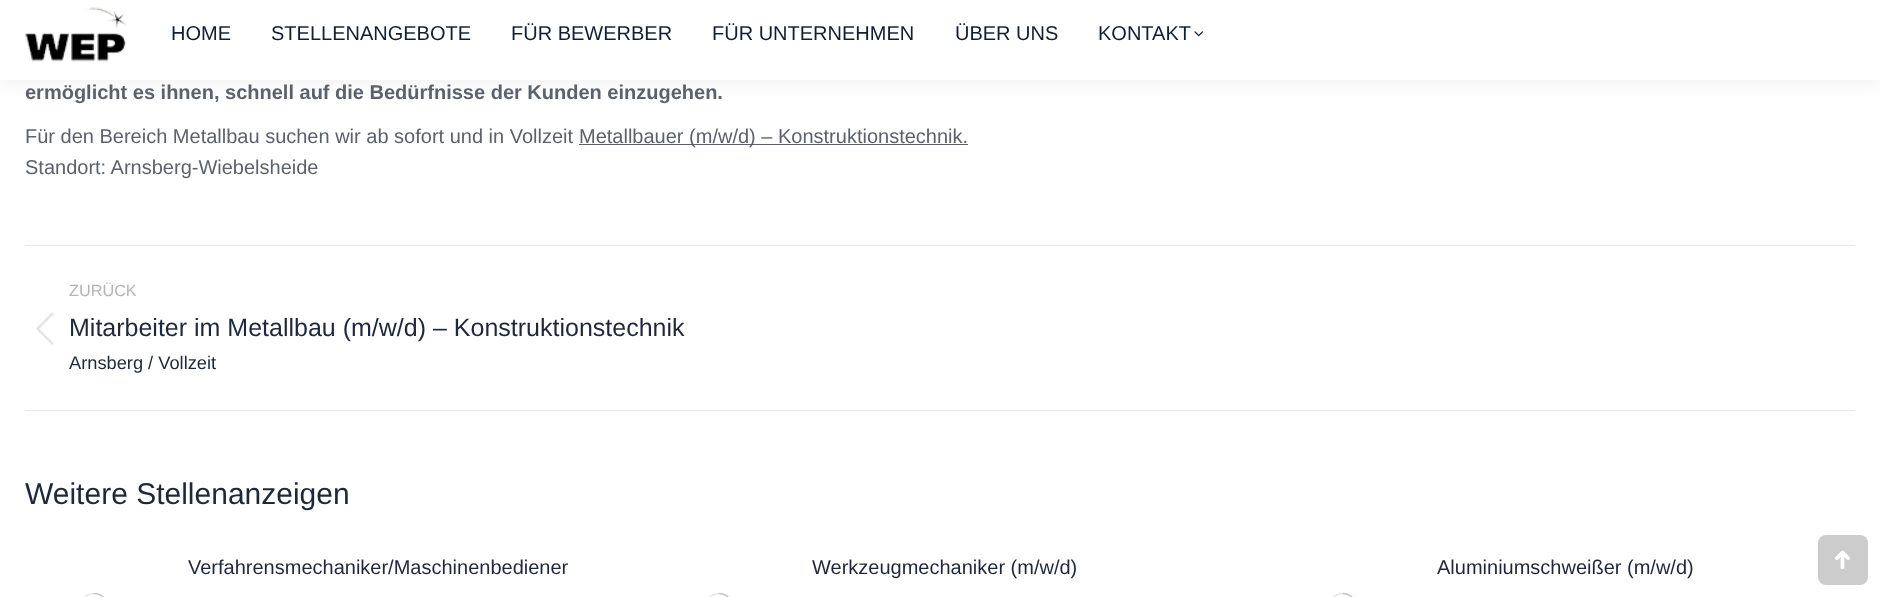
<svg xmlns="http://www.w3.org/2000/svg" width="1880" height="597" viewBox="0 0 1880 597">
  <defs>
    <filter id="blur1" x="-50%" y="-200%" width="200%" height="500%"><feGaussianBlur stdDeviation="9.5"/></filter>
    <clipPath id="clip1"><rect x="79" y="593" width="30" height="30"/></clipPath>
    <clipPath id="clip2"><rect x="704" y="593" width="30" height="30"/></clipPath>
    <clipPath id="clip3"><rect x="1328" y="593" width="30" height="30"/></clipPath>
  </defs>
  <rect width="100%" height="100%" fill="#ffffff"/>
  <rect x="-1" y="-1" width="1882" height="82" fill="#000000" fill-opacity="0.07" filter="url(#blur1)"/>
  <rect x="0" y="0" width="1880" height="80" fill="#ffffff"/>
  <image x="25" y="7" width="102" height="55" href="img1.png"/>
  <text x="171" y="40" font-family="Liberation Sans" font-size="20" fill="#111e33">HOME</text>
  <text x="271" y="40" font-family="Liberation Sans" font-size="20" fill="#111e33">STELLENANGEBOTE</text>
  <text x="511" y="40" font-family="Liberation Sans" font-size="20" fill="#111e33">FÜR BEWERBER</text>
  <text x="712" y="40" font-family="Liberation Sans" font-size="20" fill="#111e33">FÜR UNTERNEHMEN</text>
  <text x="955" y="40" font-family="Liberation Sans" font-size="20" fill="#111e33">ÜBER UNS</text>
  <text x="1098" y="40" font-family="Liberation Sans" font-size="20" fill="#111e33">KONTAKT</text>
  <image x="1194" y="31" width="10" height="6" href="img2.png"/>
  <text x="25" y="99" font-family="Liberation Sans" font-size="20" font-weight="bold" fill="#5c626c">ermöglicht es ihnen, schnell auf die Bedürfnisse der Kunden einzugehen.</text>
  <text x="25" y="143" font-family="Liberation Sans" font-size="20" fill="#5c626c">Für den Bereich Metallbau suchen wir ab sofort und in Vollzeit</text>
  <rect x="579" y="144" width="389" height="1" fill="#5c626c"/>
  <text x="579" y="143" font-family="Liberation Sans" font-size="20" fill="#5c626c">Metallbauer (m/w/d) – Konstruktionstechnik.</text>
  <text x="25" y="174" font-family="Liberation Sans" font-size="20" fill="#5c626c">Standort: Arnsberg-Wiebelsheide</text>
  <rect x="25" y="245" width="1830" height="1" fill="#e7e7e7"/>
  <rect x="25" y="410" width="1830" height="1" fill="#e7e7e7"/>
  <text x="69" y="296" font-family="Liberation Sans" font-size="16.25" fill="#b4b5bb">ZURÜCK</text>
  <image x="36" y="312" width="18" height="33" href="img3.png"/>
  <text x="69" y="336" font-family="Liberation Sans" font-size="25" fill="#1e283a">Mitarbeiter im Metallbau (m/w/d) – Konstruktionstechnik</text>
  <text x="69" y="369" font-family="Liberation Sans" font-size="18.25" fill="#1e283a">Arnsberg / Vollzeit</text>
  <text x="25" y="504" font-family="Liberation Sans" font-size="30" fill="#1e283a">Weitere Stellenanzeigen</text>
  <text x="188" y="574" font-family="Liberation Sans" font-size="20" fill="#1e283a">Verfahrensmechaniker/Maschinenbediener</text>
  <g clip-path="url(#clip1)">
    <circle cx="94" cy="607.5" r="14" fill="none" stroke="#e9e9eb" stroke-width="1.6"/>
  </g>
  <path d="M108 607.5C108 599.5 101.5 593.5 94 593.5" fill="none" stroke="#5c626c" stroke-opacity="0.25" stroke-width="1.6"/>
  <text x="812" y="574" font-family="Liberation Sans" font-size="20" fill="#1e283a">Werkzeugmechaniker (m/w/d)</text>
  <g clip-path="url(#clip2)">
    <circle cx="719" cy="607.5" r="14" fill="none" stroke="#e9e9eb" stroke-width="1.6"/>
  </g>
  <path d="M733 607.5C733 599.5 726.5 593.5 719 593.5" fill="none" stroke="#5c626c" stroke-opacity="0.25" stroke-width="1.6"/>
  <text x="1437" y="574" font-family="Liberation Sans" font-size="20" fill="#1e283a">Aluminiumschweißer (m/w/d)</text>
  <g clip-path="url(#clip3)">
    <circle cx="1342.5" cy="607.5" r="14" fill="none" stroke="#e9e9eb" stroke-width="1.6"/>
  </g>
  <path d="M1356.5 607.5C1356.5 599.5 1350.5 593.5 1342.5 593.5" fill="none" stroke="#5c626c" stroke-opacity="0.25" stroke-width="1.6"/>
  <rect x="1818" y="535" width="50" height="50" rx="8" fill="#cccccc"/>
  <image x="1835" y="550" width="15" height="20" href="img4.png"/>
</svg>
